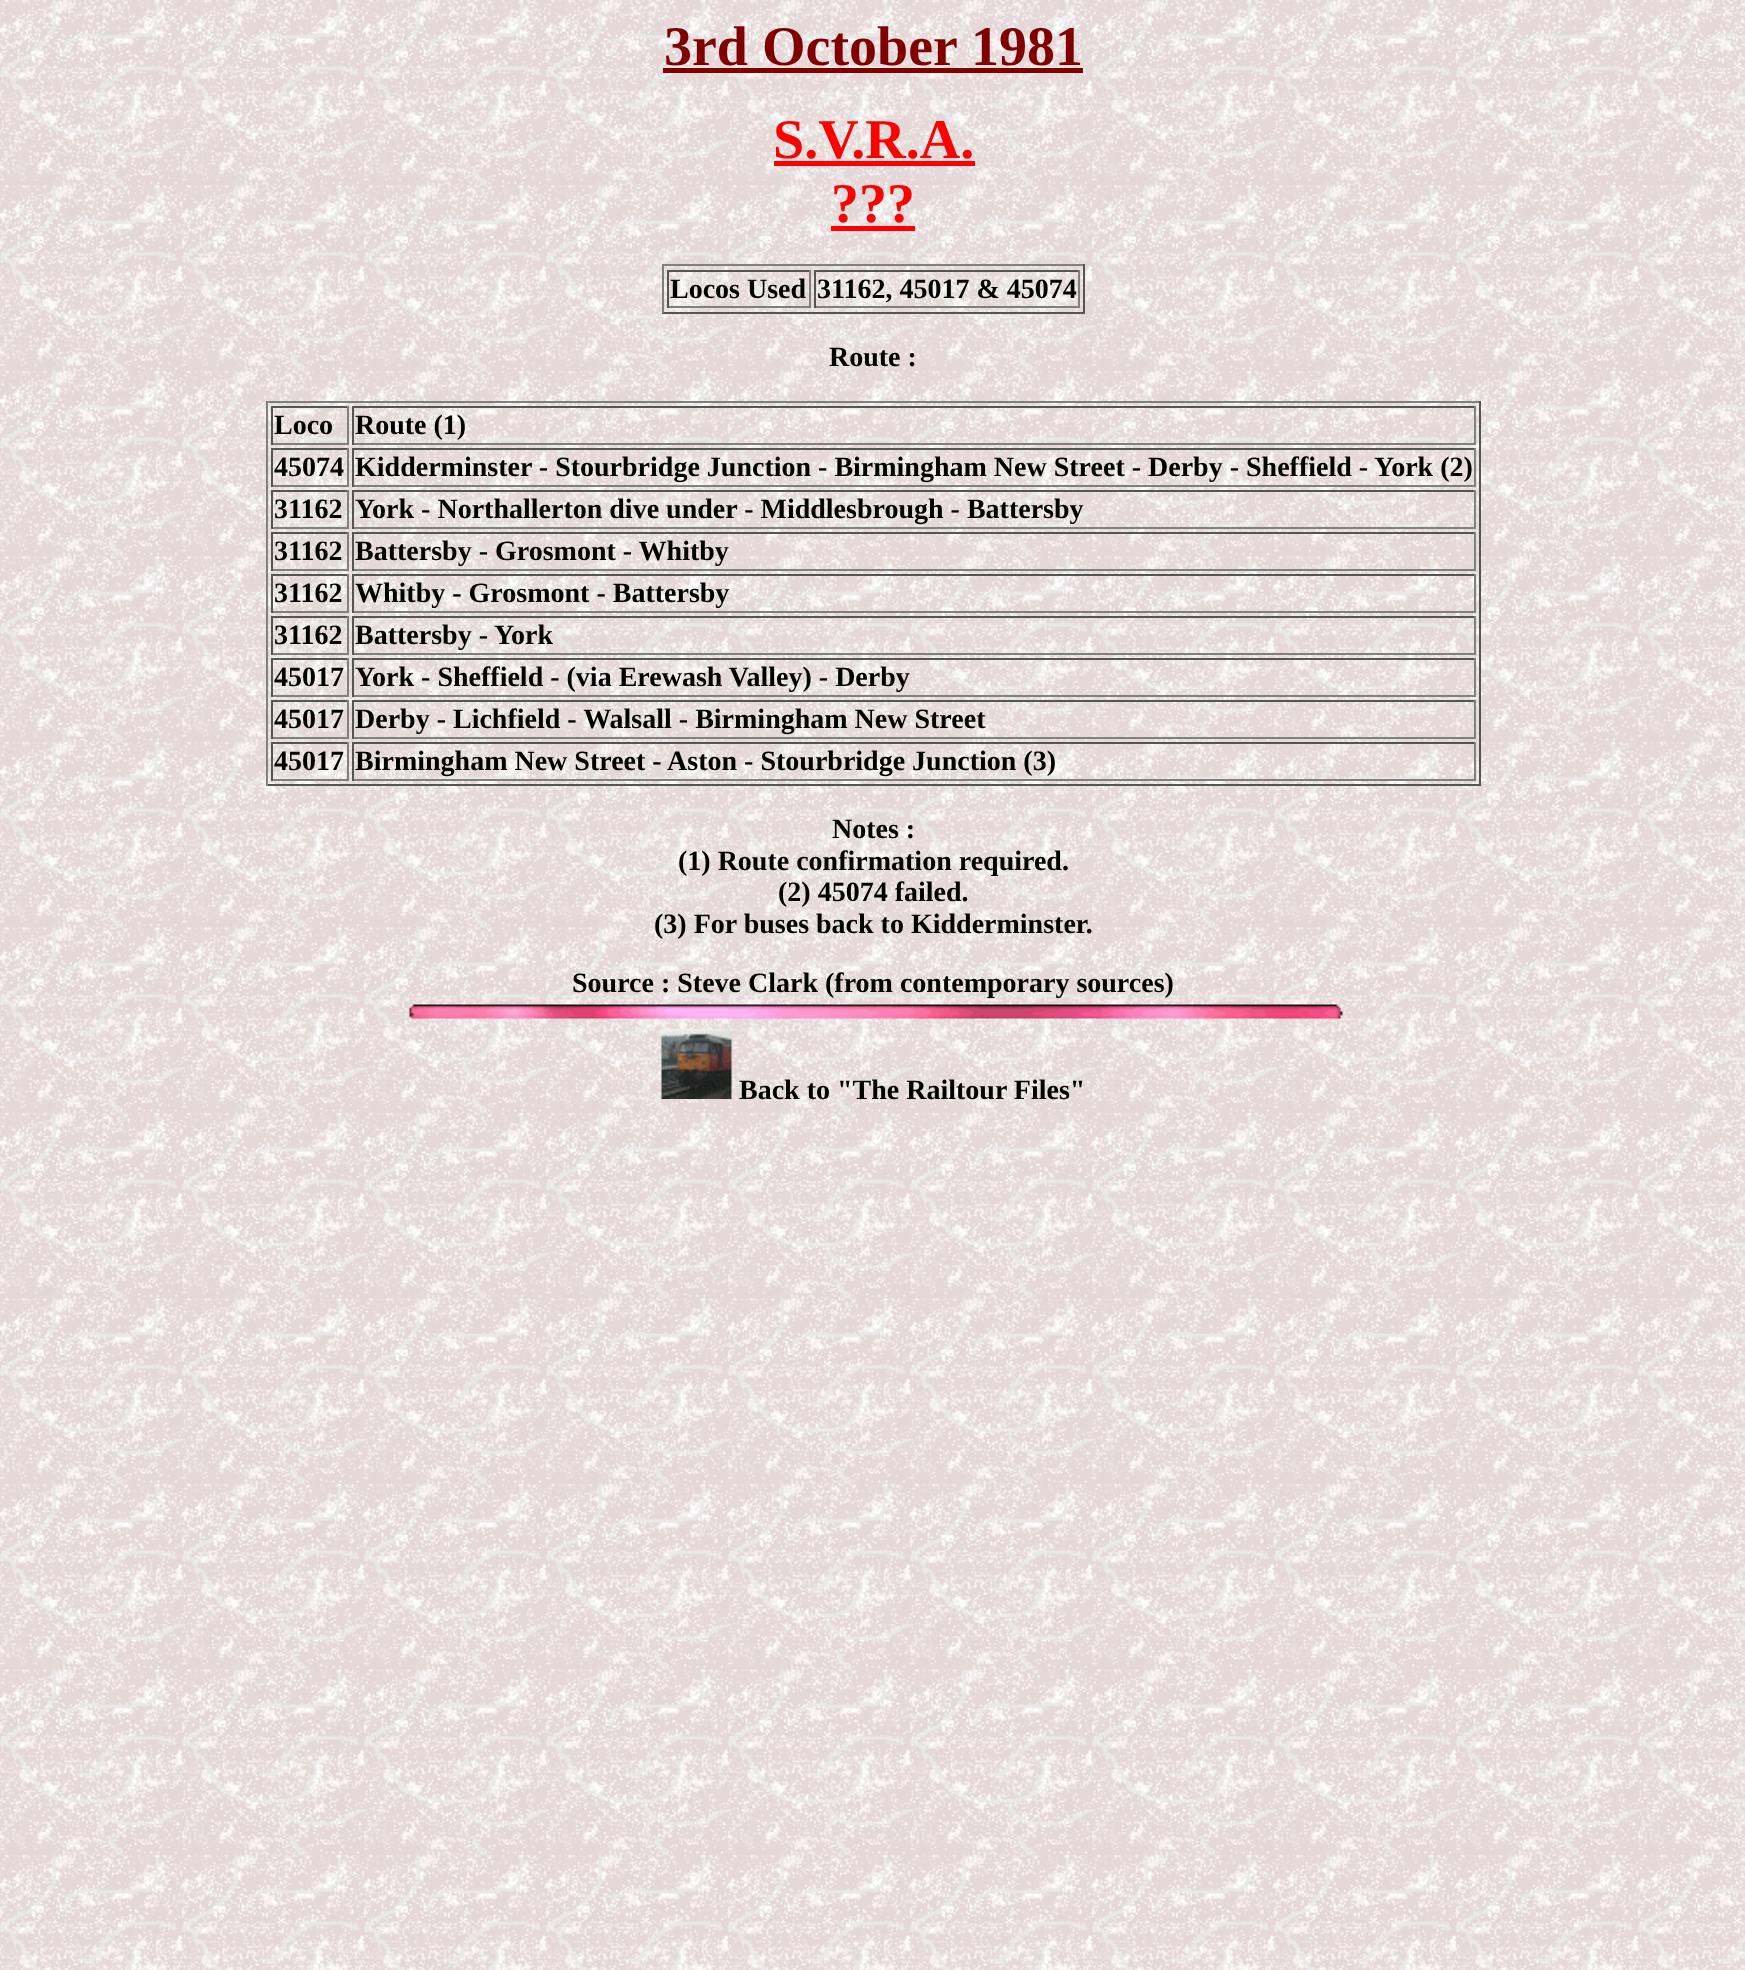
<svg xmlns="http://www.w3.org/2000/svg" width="1745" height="1970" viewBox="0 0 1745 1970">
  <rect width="100%" height="100%" fill="#ffffff"/>
  <image x="0" y="0" width="1745" height="1970" href="img1.png"/>
  <text x="664" y="65" font-family="Liberation Serif" font-size="56" font-weight="bold" fill="#800000">3rd October 1981</text>
  <rect x="663" y="68" width="420" height="5" fill="#800000"/>
  <text x="773" y="158" font-family="Liberation Serif" font-size="56" font-weight="bold" fill="#ff0000">S.V.R.A.</text>
  <rect x="774" y="161" width="201" height="5" fill="#ff0000"/>
  <text x="831" y="222" font-family="Liberation Serif" font-size="56" font-weight="bold" fill="#ff0000">???</text>
  <rect x="831" y="226" width="84" height="5" fill="#ff0000"/>
  <rect x="662" y="264" width="423" height="2" fill="#808080"/>
  <rect x="1083" y="264" width="2" height="49" fill="#555555"/>
  <rect x="662" y="312" width="423" height="2" fill="#555555"/>
  <rect x="662" y="264" width="2" height="49" fill="#808080"/>
  <rect x="667" y="270" width="143" height="2" fill="#555555"/>
  <rect x="809" y="270" width="2" height="38" fill="#808080"/>
  <rect x="667" y="306" width="143" height="2" fill="#808080"/>
  <rect x="667" y="270" width="2" height="38" fill="#555555"/>
  <text x="670" y="298" font-family="Liberation Serif" font-size="28" font-weight="bold" fill="#000000">Locos Used</text>
  <rect x="814" y="270" width="266" height="2" fill="#555555"/>
  <rect x="1078" y="270" width="2" height="38" fill="#808080"/>
  <rect x="814" y="306" width="266" height="2" fill="#808080"/>
  <rect x="814" y="270" width="2" height="38" fill="#555555"/>
  <text x="817" y="298" font-family="Liberation Serif" font-size="28" font-weight="bold" fill="#000000">31162, 45017 &amp; 45074</text>
  <text x="829" y="366" font-family="Liberation Serif" font-size="28" font-weight="bold" fill="#000000">Route :</text>
  <rect x="266" y="401" width="1215" height="2" fill="#808080"/>
  <rect x="1479" y="401" width="2" height="385" fill="#555555"/>
  <rect x="266" y="784" width="1215" height="2" fill="#555555"/>
  <rect x="266" y="401" width="2" height="385" fill="#808080"/>
  <rect x="271" y="406" width="77" height="2" fill="#555555"/>
  <rect x="347" y="406" width="2" height="39" fill="#808080"/>
  <rect x="271" y="443" width="77" height="2" fill="#808080"/>
  <rect x="271" y="406" width="2" height="39" fill="#555555"/>
  <text x="274" y="434" font-family="Liberation Serif" font-size="28" font-weight="bold" fill="#000000">Loco</text>
  <rect x="352" y="406" width="1123" height="2" fill="#555555"/>
  <rect x="1474" y="406" width="2" height="39" fill="#808080"/>
  <rect x="352" y="443" width="1123" height="2" fill="#808080"/>
  <rect x="352" y="406" width="2" height="39" fill="#555555"/>
  <text x="355" y="434" font-family="Liberation Serif" font-size="28" font-weight="bold" fill="#000000">Route (1)</text>
  <rect x="271" y="448" width="77" height="2" fill="#555555"/>
  <rect x="347" y="448" width="2" height="39" fill="#808080"/>
  <rect x="271" y="485" width="77" height="2" fill="#808080"/>
  <rect x="271" y="448" width="2" height="39" fill="#555555"/>
  <text x="274" y="476" font-family="Liberation Serif" font-size="28" font-weight="bold" fill="#000000">45074</text>
  <rect x="352" y="448" width="1123" height="2" fill="#555555"/>
  <rect x="1474" y="448" width="2" height="39" fill="#808080"/>
  <rect x="352" y="485" width="1123" height="2" fill="#808080"/>
  <rect x="352" y="448" width="2" height="39" fill="#555555"/>
  <text x="355" y="476" font-family="Liberation Serif" font-size="28" font-weight="bold" fill="#000000">Kidderminster - Stourbridge Junction - Birmingham New Street - Derby - Sheffield - York (2)</text>
  <rect x="271" y="490" width="77" height="2" fill="#555555"/>
  <rect x="347" y="490" width="2" height="39" fill="#808080"/>
  <rect x="271" y="527" width="77" height="2" fill="#808080"/>
  <rect x="271" y="490" width="2" height="39" fill="#555555"/>
  <text x="274" y="518" font-family="Liberation Serif" font-size="28" font-weight="bold" fill="#000000">31162</text>
  <rect x="352" y="490" width="1123" height="2" fill="#555555"/>
  <rect x="1474" y="490" width="2" height="39" fill="#808080"/>
  <rect x="352" y="527" width="1123" height="2" fill="#808080"/>
  <rect x="352" y="490" width="2" height="39" fill="#555555"/>
  <text x="355" y="518" font-family="Liberation Serif" font-size="28" font-weight="bold" fill="#000000">York - Northallerton dive under - Middlesbrough - Battersby</text>
  <rect x="271" y="532" width="77" height="2" fill="#555555"/>
  <rect x="347" y="532" width="2" height="39" fill="#808080"/>
  <rect x="271" y="569" width="77" height="2" fill="#808080"/>
  <rect x="271" y="532" width="2" height="39" fill="#555555"/>
  <text x="274" y="560" font-family="Liberation Serif" font-size="28" font-weight="bold" fill="#000000">31162</text>
  <rect x="352" y="532" width="1123" height="2" fill="#555555"/>
  <rect x="1474" y="532" width="2" height="39" fill="#808080"/>
  <rect x="352" y="569" width="1123" height="2" fill="#808080"/>
  <rect x="352" y="532" width="2" height="39" fill="#555555"/>
  <text x="355" y="560" font-family="Liberation Serif" font-size="28" font-weight="bold" fill="#000000">Battersby - Grosmont - Whitby</text>
  <rect x="271" y="574" width="77" height="2" fill="#555555"/>
  <rect x="347" y="574" width="2" height="39" fill="#808080"/>
  <rect x="271" y="611" width="77" height="2" fill="#808080"/>
  <rect x="271" y="574" width="2" height="39" fill="#555555"/>
  <text x="274" y="602" font-family="Liberation Serif" font-size="28" font-weight="bold" fill="#000000">31162</text>
  <rect x="352" y="574" width="1123" height="2" fill="#555555"/>
  <rect x="1474" y="574" width="2" height="39" fill="#808080"/>
  <rect x="352" y="611" width="1123" height="2" fill="#808080"/>
  <rect x="352" y="574" width="2" height="39" fill="#555555"/>
  <text x="355" y="602" font-family="Liberation Serif" font-size="28" font-weight="bold" fill="#000000">Whitby - Grosmont - Battersby</text>
  <rect x="271" y="616" width="77" height="2" fill="#555555"/>
  <rect x="347" y="616" width="2" height="39" fill="#808080"/>
  <rect x="271" y="653" width="77" height="2" fill="#808080"/>
  <rect x="271" y="616" width="2" height="39" fill="#555555"/>
  <text x="274" y="644" font-family="Liberation Serif" font-size="28" font-weight="bold" fill="#000000">31162</text>
  <rect x="352" y="616" width="1123" height="2" fill="#555555"/>
  <rect x="1474" y="616" width="2" height="39" fill="#808080"/>
  <rect x="352" y="653" width="1123" height="2" fill="#808080"/>
  <rect x="352" y="616" width="2" height="39" fill="#555555"/>
  <text x="355" y="644" font-family="Liberation Serif" font-size="28" font-weight="bold" fill="#000000">Battersby - York</text>
  <rect x="271" y="658" width="77" height="2" fill="#555555"/>
  <rect x="347" y="658" width="2" height="39" fill="#808080"/>
  <rect x="271" y="695" width="77" height="2" fill="#808080"/>
  <rect x="271" y="658" width="2" height="39" fill="#555555"/>
  <text x="274" y="686" font-family="Liberation Serif" font-size="28" font-weight="bold" fill="#000000">45017</text>
  <rect x="352" y="658" width="1123" height="2" fill="#555555"/>
  <rect x="1474" y="658" width="2" height="39" fill="#808080"/>
  <rect x="352" y="695" width="1123" height="2" fill="#808080"/>
  <rect x="352" y="658" width="2" height="39" fill="#555555"/>
  <text x="355" y="686" font-family="Liberation Serif" font-size="28" font-weight="bold" fill="#000000">York - Sheffield - (via Erewash Valley) - Derby</text>
  <rect x="271" y="700" width="77" height="2" fill="#555555"/>
  <rect x="347" y="700" width="2" height="39" fill="#808080"/>
  <rect x="271" y="737" width="77" height="2" fill="#808080"/>
  <rect x="271" y="700" width="2" height="39" fill="#555555"/>
  <text x="274" y="728" font-family="Liberation Serif" font-size="28" font-weight="bold" fill="#000000">45017</text>
  <rect x="352" y="700" width="1123" height="2" fill="#555555"/>
  <rect x="1474" y="700" width="2" height="39" fill="#808080"/>
  <rect x="352" y="737" width="1123" height="2" fill="#808080"/>
  <rect x="352" y="700" width="2" height="39" fill="#555555"/>
  <text x="355" y="728" font-family="Liberation Serif" font-size="28" font-weight="bold" fill="#000000">Derby - Lichfield - Walsall - Birmingham New Street</text>
  <rect x="271" y="742" width="77" height="2" fill="#555555"/>
  <rect x="347" y="742" width="2" height="39" fill="#808080"/>
  <rect x="271" y="779" width="77" height="2" fill="#808080"/>
  <rect x="271" y="742" width="2" height="39" fill="#555555"/>
  <text x="274" y="770" font-family="Liberation Serif" font-size="28" font-weight="bold" fill="#000000">45017</text>
  <rect x="352" y="742" width="1123" height="2" fill="#555555"/>
  <rect x="1474" y="742" width="2" height="39" fill="#808080"/>
  <rect x="352" y="779" width="1123" height="2" fill="#808080"/>
  <rect x="352" y="742" width="2" height="39" fill="#555555"/>
  <text x="355" y="770" font-family="Liberation Serif" font-size="28" font-weight="bold" fill="#000000">Birmingham New Street - Aston - Stourbridge Junction (3)</text>
  <text x="832" y="838" font-family="Liberation Serif" font-size="28" font-weight="bold" fill="#000000">Notes :</text>
  <text x="678" y="870" font-family="Liberation Serif" font-size="28" font-weight="bold" fill="#000000">(1) Route confirmation required.</text>
  <text x="778" y="901" font-family="Liberation Serif" font-size="28" font-weight="bold" fill="#000000">(2) 45074 failed.</text>
  <text x="654" y="933" font-family="Liberation Serif" font-size="28" font-weight="bold" fill="#000000">(3) For buses back to Kidderminster.</text>
  <text x="572" y="992" font-family="Liberation Serif" font-size="28" font-weight="bold" fill="#000000">Source : Steve Clark (from contemporary sources)</text>
  <image x="409" y="1004" width="934" height="15" href="img2.png"/>
  <image x="661" y="1029" width="71" height="70" href="img3.png"/>
  <text x="739" y="1099" font-family="Liberation Serif" font-size="28" font-weight="bold" fill="#000000">Back to "The Railtour Files"</text>
</svg>
